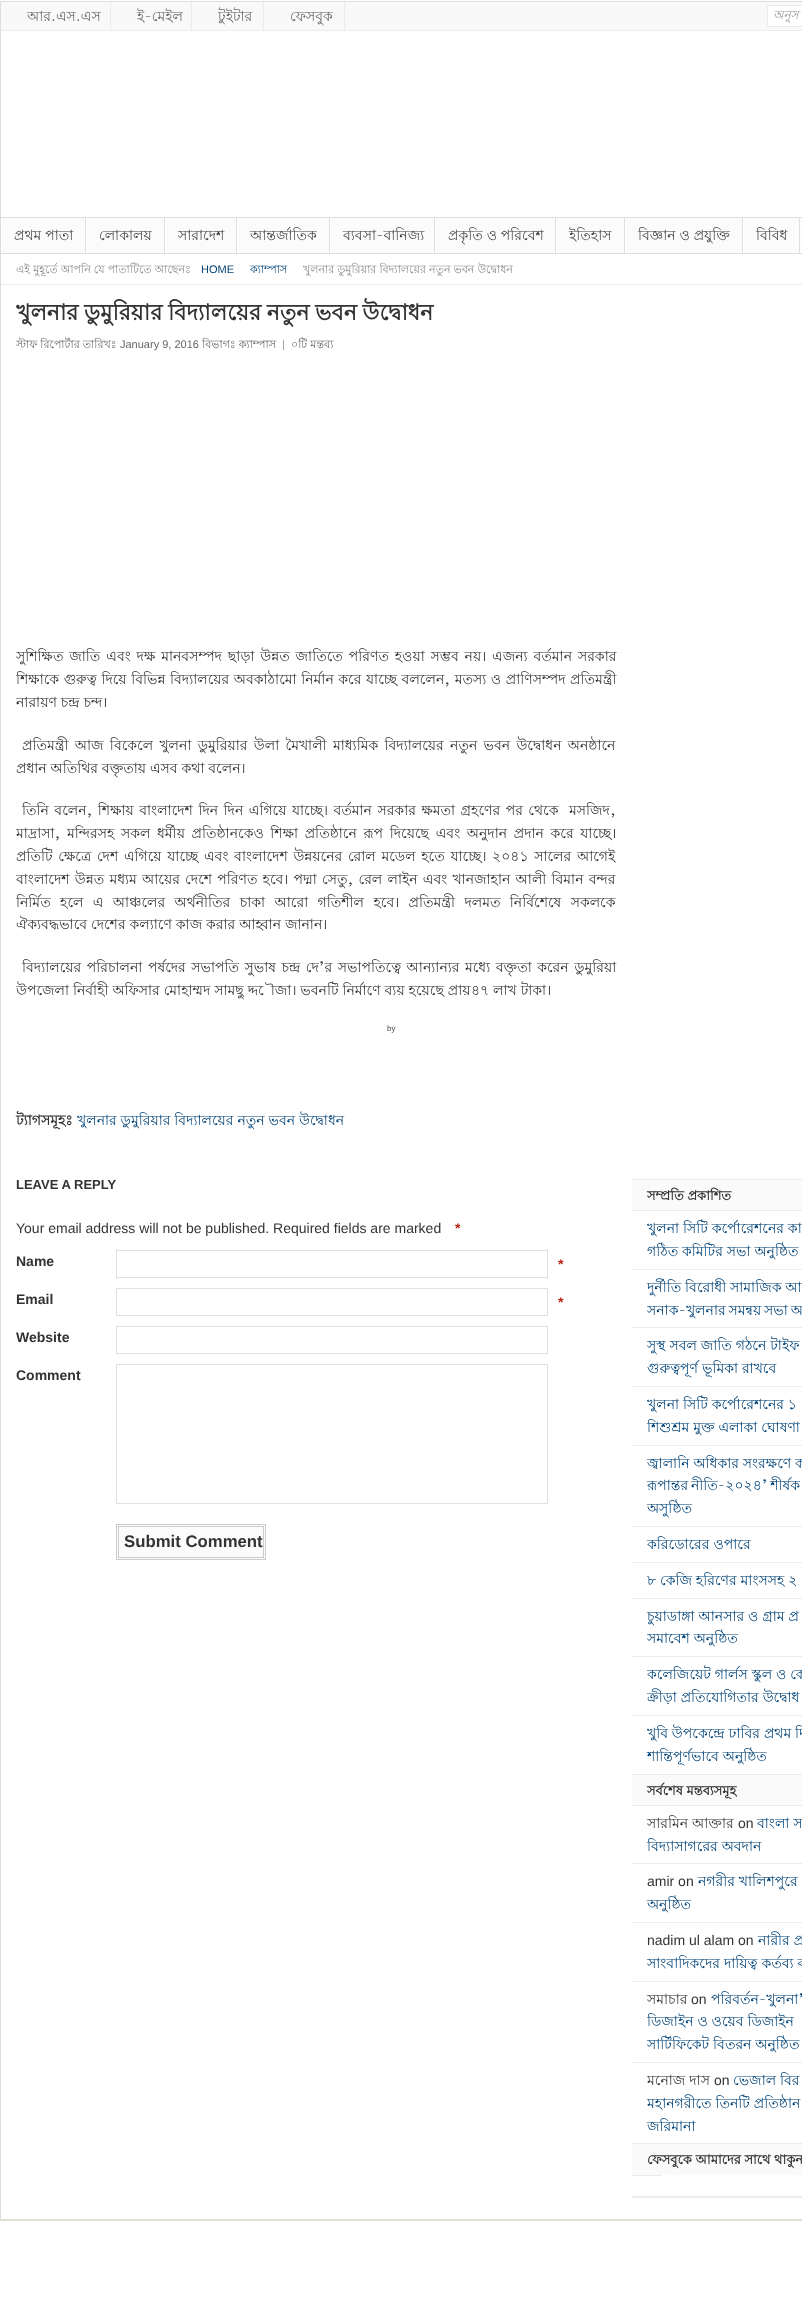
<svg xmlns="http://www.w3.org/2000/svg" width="802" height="2300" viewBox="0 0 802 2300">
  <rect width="100%" height="100%" fill="#ffffff"/>
  <rect x="0.5" y="1.5" width="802" height="2219" fill="none" stroke="#dddddd"/>
  <rect x="1" y="2" width="801" height="28" fill="#f9f9f9"/>
  <rect x="1" y="30" width="801" height="1" fill="#ecede8"/>
  <rect x="110" y="2" width="1" height="28" fill="#ecede8"/>
  <text x="27" y="21" font-family="Lohit Bengali" font-size="14" fill="#666666">আর.এস.এস</text>
  <rect x="191" y="2" width="1" height="28" fill="#ecede8"/>
  <text x="137" y="21" font-family="Lohit Bengali" font-size="14" fill="#666666">ই-মেইল</text>
  <rect x="263" y="2" width="1" height="28" fill="#ecede8"/>
  <text x="218" y="21" font-family="Lohit Bengali" font-size="14" fill="#666666">টুইটার</text>
  <rect x="344" y="2" width="1" height="28" fill="#ecede8"/>
  <text x="290" y="21" font-family="Lohit Bengali" font-size="14" fill="#666666">ফেসবুক</text>
  <rect x="767.5" y="5.5" width="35" height="21" fill="#ffffff" stroke="#ecede8"/>
  <text x="773" y="19" font-family="Lohit Bengali" font-size="12" font-style="italic" fill="#999999">অনুস</text>
  <rect x="2" y="218" width="800" height="35" fill="#fbfbfb"/>
  <rect x="1" y="217" width="801" height="1" fill="#dfdfdf"/>
  <rect x="1" y="253" width="801" height="1" fill="#dfdfdf"/>
  <rect x="85" y="218" width="1" height="35" fill="#dfdfdf"/>
  <text x="14" y="240" font-family="Lohit Bengali" font-size="14" fill="#444444">প্রথম পাতা</text>
  <rect x="164" y="218" width="1" height="35" fill="#dfdfdf"/>
  <rect x="86" y="218" width="1" height="35" fill="#ffffff"/>
  <text x="99" y="240" font-family="Lohit Bengali" font-size="14" fill="#444444">লোকালয়</text>
  <rect x="236" y="218" width="1" height="35" fill="#dfdfdf"/>
  <rect x="165" y="218" width="1" height="35" fill="#ffffff"/>
  <text x="178" y="240" font-family="Lohit Bengali" font-size="14" fill="#444444">সারাদেশ</text>
  <rect x="329" y="218" width="1" height="35" fill="#dfdfdf"/>
  <rect x="237" y="218" width="1" height="35" fill="#ffffff"/>
  <text x="250" y="240" font-family="Lohit Bengali" font-size="14" fill="#444444">আন্তর্জাতিক</text>
  <rect x="434" y="218" width="1" height="35" fill="#dfdfdf"/>
  <rect x="330" y="218" width="1" height="35" fill="#ffffff"/>
  <text x="343" y="240" font-family="Lohit Bengali" font-size="14" fill="#444444">ব্যবসা-বানিজ্য</text>
  <rect x="555" y="218" width="1" height="35" fill="#dfdfdf"/>
  <rect x="435" y="218" width="1" height="35" fill="#ffffff"/>
  <text x="448" y="240" font-family="Lohit Bengali" font-size="14" fill="#444444">প্রকৃতি ও পরিবেশ</text>
  <rect x="624" y="218" width="1" height="35" fill="#dfdfdf"/>
  <rect x="556" y="218" width="1" height="35" fill="#ffffff"/>
  <text x="569" y="240" font-family="Lohit Bengali" font-size="14" fill="#444444">ইতিহাস</text>
  <rect x="742" y="218" width="1" height="35" fill="#dfdfdf"/>
  <rect x="625" y="218" width="1" height="35" fill="#ffffff"/>
  <text x="638" y="240" font-family="Lohit Bengali" font-size="14" fill="#444444">বিজ্ঞান ও প্রযুক্তি</text>
  <rect x="799" y="218" width="1" height="35" fill="#dfdfdf"/>
  <rect x="743" y="218" width="1" height="35" fill="#ffffff"/>
  <text x="756" y="240" font-family="Lohit Bengali" font-size="14" fill="#444444">বিবিধ</text>
  <rect x="800" y="218" width="1" height="35" fill="#ffffff"/>
  <rect x="1" y="284" width="801" height="1" fill="#ecede8"/>
  <text x="16" y="273" font-family="Lohit Bengali" font-size="11" fill="#888888">এই মুহূর্তে আপনি যে পাতাটিতে আছেনঃ</text>
  <text x="201" y="273" font-family="Liberation Sans" font-size="11" fill="#004276">HOME</text>
  <text x="250" y="273" font-family="Lohit Bengali" font-size="11" fill="#004276">ক্যাম্পাস</text>
  <text x="303" y="273" font-family="Lohit Bengali" font-size="11" fill="#888888">খুলনার ডুমুরিয়ার বিদ্যালয়ের নতুন ভবন উদ্বোধন</text>
  <rect x="1" y="2219" width="801" height="1" fill="#e2e1cd"/>
  <text x="16" y="320" word-spacing="-0.5" font-family="Lohit Bengali" font-size="22" font-weight="bold" fill="#333333">খুলনার ডুমুরিয়ার বিদ্যালয়ের নতুন ভবন উদ্বোধন</text>
  <text x="16" y="348" font-family="Lohit Bengali" font-size="11" fill="#666666">স্টাফ রিপোর্টার তারিখঃ</text>
  <text x="120" y="348" font-family="Liberation Sans" font-size="11" fill="#666666">January 9, 2016</text>
  <text x="202" y="348" font-family="Lohit Bengali" font-size="11" fill="#666666">বিভাগঃ ক্যাম্পাস</text>
  <text x="282" y="348" font-family="Liberation Sans" font-size="11" fill="#999999">|</text>
  <text x="291" y="348" font-family="Lohit Bengali" font-size="11" fill="#666666">০টি মন্তব্য</text>
  <text x="16" y="661" word-spacing="2" font-family="Lohit Bengali" font-size="14" fill="#333333">সুশিক্ষিত জাতি এবং দক্ষ মানবসম্পদ ছাড়া উন্নত জাতিতে পরিণত হওয়া সম্ভব নয়। এজন্য বর্তমান সরকার</text>
  <text x="16" y="684" word-spacing="0.7" font-family="Lohit Bengali" font-size="14" fill="#333333">শিক্ষাকে গুরুত্ব দিয়ে বিভিন্ন বিদ্যালয়ের অবকাঠামো নির্মান করে যাচ্ছে বললেন, মতস্য ও প্রাণিসম্পদ প্রতিমন্ত্রী</text>
  <text x="16" y="707" font-family="Lohit Bengali" font-size="14" fill="#333333">নারায়ণ চন্দ্র চন্দ।</text>
  <text x="22" y="750" word-spacing="2.4" font-family="Lohit Bengali" font-size="14" fill="#333333">প্রতিমন্ত্রী আজ বিকেলে খুলনা ডুমুরিয়ার উলা মৈখালী মাধ্যমিক বিদ্যালয়ের নতুন ভবন উদ্বোধন অনষ্ঠানে</text>
  <text x="16" y="773" font-family="Lohit Bengali" font-size="14" fill="#333333">প্রধান অতিথির বক্তৃতায় এসব কথা বলেন।</text>
  <text x="22" y="815" word-spacing="1.6" font-family="Lohit Bengali" font-size="14" fill="#333333">তিনি বলেন, শিক্ষায় বাংলাদেশ দিন দিন এগিয়ে যাচ্ছে। বর্তমান সরকার ক্ষমতা গ্রহণের পর থেকে</text>
  <text x="569" y="815" font-family="Lohit Bengali" font-size="14" fill="#333333">মসজিদ,</text>
  <text x="16" y="838" word-spacing="2.75" font-family="Lohit Bengali" font-size="14" fill="#333333">মাদ্রাসা, মন্দিরসহ সকল ধর্মীয় প্রতিষ্ঠানকেও শিক্ষা প্রতিষ্ঠানে রূপ দিয়েছে এবং অনুদান প্রদান করে যাচ্ছে।</text>
  <text x="16" y="861" word-spacing="1.8" font-family="Lohit Bengali" font-size="14" fill="#333333">প্রতিটি ক্ষেত্রে দেশ এগিয়ে যাচ্ছে এবং বাংলাদেশ উন্নয়নের রোল মডেল হতে যাচ্ছে। ২০৪১ সালের আগেই</text>
  <text x="16" y="884" word-spacing="1.3" font-family="Lohit Bengali" font-size="14" fill="#333333">বাংলাদেশ উন্নত মধ্যম আয়ের দেশে পরিণত হবে। পদ্মা সেতু, রেল লাইন এবং খানজাহান আলী বিমান বন্দর</text>
  <text x="16" y="907" word-spacing="5.5" font-family="Lohit Bengali" font-size="14" fill="#333333">নির্মিত হলে এ আঞ্চলের অর্থনীতির চাকা আরো গতিশীল হবে। প্রতিমন্ত্রী দলমত নির্বিশেষে সকলকে</text>
  <text x="16" y="929" font-family="Lohit Bengali" font-size="14" fill="#333333">ঐক্যবদ্ধভাবে দেশের কল্যাণে কাজ করার আহ্বান জানান।</text>
  <text x="22" y="972" word-spacing="1.6" font-family="Lohit Bengali" font-size="14" fill="#333333">বিদ্যালয়ের পরিচালনা পর্ষদের সভাপতি সুভাষ চন্দ্র দে’র সভাপতিত্বে আন্যান্যর মধ্যে বক্তৃতা করেন ডুমুরিয়া</text>
  <text x="16" y="995" font-family="Lohit Bengali" font-size="14" fill="#333333">উপজেলা নির্বাহী অফিসার মোহাম্মদ সামছু দ্দৌজা। ভবনটি নির্মাণে ব্যয় হয়েছে প্রায়</text>
  <text x="471" y="995" font-family="Lohit Bengali" font-size="14" fill="#333333">৪৭ লাখ টাকা।</text>
  <text x="387" y="1031" font-family="Liberation Sans" font-size="8" fill="#444444">by</text>
  <text x="16" y="1125" font-family="Lohit Bengali" font-size="14" font-weight="bold" fill="#333333">ট্যাগসমূহঃ</text>
  <text x="77" y="1125" font-family="Lohit Bengali" font-size="14" fill="#004276">খুলনার ডুমুরিয়ার বিদ্যালয়ের নতুন ভবন উদ্বোধন</text>
  <text x="16" y="1189" font-family="Liberation Sans" font-size="13" font-weight="bold" fill="#333333">LEAVE A REPLY</text>
  <text x="16" y="1233" font-family="Liberation Sans" font-size="14" fill="#333333">Your email address will not be published. Required fields are marked</text>
  <text x="455" y="1233" font-family="Liberation Sans" font-size="14" font-weight="bold" fill="#b8240d">*</text>
  <text x="16" y="1266" font-family="Liberation Sans" font-size="14" font-weight="bold" fill="#333333">Name</text>
  <rect x="116.5" y="1250.5" width="431" height="27" fill="none" stroke="#dfdfdf"/>
  <text x="558" y="1269" font-family="Liberation Sans" font-size="14" font-weight="bold" fill="#b8240d">*</text>
  <text x="16" y="1304" font-family="Liberation Sans" font-size="14" font-weight="bold" fill="#333333">Email</text>
  <rect x="116.5" y="1288.5" width="431" height="27" fill="none" stroke="#dfdfdf"/>
  <text x="558" y="1307" font-family="Liberation Sans" font-size="14" font-weight="bold" fill="#b8240d">*</text>
  <text x="16" y="1342" font-family="Liberation Sans" font-size="14" font-weight="bold" fill="#333333">Website</text>
  <rect x="116.5" y="1326.5" width="431" height="27" fill="none" stroke="#dfdfdf"/>
  <text x="16" y="1380" font-family="Liberation Sans" font-size="14" font-weight="bold" fill="#333333">Comment</text>
  <rect x="116.5" y="1364.5" width="431" height="139" fill="none" stroke="#dfdfdf"/>
  <rect x="116.5" y="1524.5" width="149" height="35" fill="#fbfbfb" stroke="#cccccc"/>
  <rect x="118.5" y="1526.5" width="145" height="31" fill="none" stroke="#cccccc"/>
  <text x="124" y="1547" font-family="Liberation Sans" font-size="16.75" font-weight="bold" fill="#333333">Submit Comment</text>
  <rect x="632" y="1179" width="170" height="1" fill="#ecede8"/>
  <rect x="632" y="1774" width="170" height="1" fill="#ecede8"/>
  <rect x="632" y="1180" width="170" height="30" fill="#fafafa"/>
  <text x="647" y="1200" font-family="Lohit Bengali" font-size="13" font-weight="bold" fill="#333333">সম্প্রতি প্রকাশিত</text>
  <rect x="632" y="1210" width="170" height="1" fill="#ecede8"/>
  <text x="647" y="1233" font-family="Lohit Bengali" font-size="14" fill="#004276">খুলনা সিটি কর্পোরেশনের কা</text>
  <text x="647" y="1256" font-family="Lohit Bengali" font-size="14" fill="#004276">গঠিত কমিটির সভা অনুষ্ঠিত</text>
  <rect x="632" y="1269" width="170" height="1" fill="#ecede8"/>
  <text x="647" y="1292" font-family="Lohit Bengali" font-size="14" fill="#004276">দুর্নীতি বিরোধী সামাজিক আ</text>
  <text x="647" y="1315" word-spacing="-1" font-family="Lohit Bengali" font-size="14" fill="#004276">সনাক-খুলনার সমন্বয় সভা অ</text>
  <rect x="632" y="1327" width="170" height="1" fill="#ecede8"/>
  <text x="647" y="1350" font-family="Lohit Bengali" font-size="14" fill="#004276">সুস্থ সবল জাতি গঠনে টাইফ</text>
  <text x="647" y="1373" font-family="Lohit Bengali" font-size="14" fill="#004276">গুরুত্বপূর্ণ ভূমিকা রাখবে</text>
  <rect x="632" y="1386" width="170" height="1" fill="#ecede8"/>
  <text x="647" y="1409" font-family="Lohit Bengali" font-size="14" fill="#004276">খুলনা সিটি কর্পোরেশনের ১</text>
  <text x="647" y="1432" font-family="Lohit Bengali" font-size="14" fill="#004276">শিশুশ্রম মুক্ত এলাকা ঘোষণা</text>
  <rect x="632" y="1445" width="170" height="1" fill="#ecede8"/>
  <text x="647" y="1468" font-family="Lohit Bengali" font-size="14" fill="#004276">জ্বালানি অধিকার সংরক্ষণে ক্যা</text>
  <text x="647" y="1490" word-spacing="-1" font-family="Lohit Bengali" font-size="14" fill="#004276">রূপান্তর নীতি-২০২৪’ শীর্ষক</text>
  <text x="647" y="1513" font-family="Lohit Bengali" font-size="14" fill="#004276">অসুষ্ঠিত</text>
  <rect x="632" y="1526" width="170" height="1" fill="#ecede8"/>
  <text x="647" y="1549" font-family="Lohit Bengali" font-size="14" fill="#004276">করিডোরের ওপারে</text>
  <rect x="632" y="1562" width="170" height="1" fill="#ecede8"/>
  <text x="647" y="1585" font-family="Lohit Bengali" font-size="14" fill="#004276">৮ কেজি হরিণের মাংসসহ ২</text>
  <rect x="632" y="1598" width="170" height="1" fill="#ecede8"/>
  <text x="647" y="1621" font-family="Lohit Bengali" font-size="14" fill="#004276">চুয়াডাঙ্গা আনসার ও গ্রাম প্র</text>
  <text x="647" y="1643" font-family="Lohit Bengali" font-size="14" fill="#004276">সমাবেশ অনুষ্ঠিত</text>
  <rect x="632" y="1656" width="170" height="1" fill="#ecede8"/>
  <text x="647" y="1679" font-family="Lohit Bengali" font-size="14" fill="#004276">কলেজিয়েট গার্লস স্কুল ও কে</text>
  <text x="647" y="1702" font-family="Lohit Bengali" font-size="14" fill="#004276">ক্রীড়া প্রতিযোগিতার উদ্বোধ</text>
  <rect x="632" y="1715" width="170" height="1" fill="#ecede8"/>
  <text x="647" y="1738" font-family="Lohit Bengali" font-size="14" fill="#004276">খুবি উপকেন্দ্রে ঢাবির প্রথম দি</text>
  <text x="647" y="1761" font-family="Lohit Bengali" font-size="14" fill="#004276">শান্তিপূর্ণভাবে অনুষ্ঠিত</text>
  <rect x="632" y="2143" width="170" height="1" fill="#ecede8"/>
  <rect x="632" y="1775" width="170" height="30" fill="#fafafa"/>
  <text x="647" y="1795" font-family="Lohit Bengali" font-size="13" font-weight="bold" fill="#333333">সর্বশেষ মন্তব্যসমূহ</text>
  <rect x="632" y="1805" width="170" height="1" fill="#ecede8"/>
  <text x="647" y="1828" font-family="Lohit Bengali" font-size="14" fill="#333333">সারমিন আক্তার</text>
  <text x="738" y="1828" font-family="Liberation Sans" font-size="14" fill="#333333">on</text>
  <text x="757" y="1828" font-family="Lohit Bengali" font-size="14" fill="#004276">বাংলা সা</text>
  <text x="647" y="1851" font-family="Lohit Bengali" font-size="14" fill="#004276">বিদ্যাসাগরের অবদান</text>
  <rect x="632" y="1863" width="170" height="1" fill="#ecede8"/>
  <text x="647" y="1886" font-family="Liberation Sans" font-size="14" fill="#333333">amir on</text>
  <text x="698" y="1886" font-family="Lohit Bengali" font-size="14" fill="#004276">নগরীর খালিশপুরে</text>
  <text x="647" y="1909" font-family="Lohit Bengali" font-size="14" fill="#004276">অনুষ্ঠিত</text>
  <rect x="632" y="1922" width="170" height="1" fill="#ecede8"/>
  <text x="647" y="1945" font-family="Liberation Sans" font-size="14" fill="#333333">nadim ul alam on</text>
  <text x="758" y="1945" font-family="Lohit Bengali" font-size="14" fill="#004276">নারীর প্র</text>
  <text x="647" y="1968" font-family="Lohit Bengali" font-size="14" fill="#004276">সাংবাদিকদের দায়িত্ব কর্তব্য ব</text>
  <rect x="632" y="1981" width="170" height="1" fill="#ecede8"/>
  <text x="647" y="2004" font-family="Lohit Bengali" font-size="14" fill="#333333">সমাচার</text>
  <text x="691" y="2004" font-family="Liberation Sans" font-size="14" fill="#333333">on</text>
  <text x="711" y="2004" word-spacing="-1" font-family="Lohit Bengali" font-size="14" fill="#004276">পরিবর্তন-খুলনা’</text>
  <text x="647" y="2026" font-family="Lohit Bengali" font-size="14" fill="#004276">ডিজাইন ও ওয়েব ডিজাইন</text>
  <text x="647" y="2049" font-family="Lohit Bengali" font-size="14" fill="#004276">সার্টিফিকেট বিতরন অনুষ্ঠিত</text>
  <rect x="632" y="2062" width="170" height="1" fill="#ecede8"/>
  <text x="647" y="2085" font-family="Lohit Bengali" font-size="14" fill="#333333">মনোজ দাস</text>
  <text x="714" y="2085" font-family="Liberation Sans" font-size="14" fill="#333333">on</text>
  <text x="733" y="2085" font-family="Lohit Bengali" font-size="14" fill="#004276">ভেজাল বির</text>
  <text x="647" y="2108" font-family="Lohit Bengali" font-size="14" fill="#004276">মহানগরীতে তিনটি প্রতিষ্ঠান</text>
  <text x="647" y="2131" font-family="Lohit Bengali" font-size="14" fill="#004276">জরিমানা</text>
  <rect x="632" y="2196" width="170" height="2" fill="#ecede8"/>
  <rect x="632" y="2144" width="170" height="31" fill="#fafafa"/>
  <text x="647" y="2164" font-family="Lohit Bengali" font-size="13" font-weight="bold" fill="#333333">ফেসবুকে আমাদের সাথে থাকুন</text>
  <rect x="632" y="2175" width="30" height="1" fill="#ecede8"/>
</svg>
